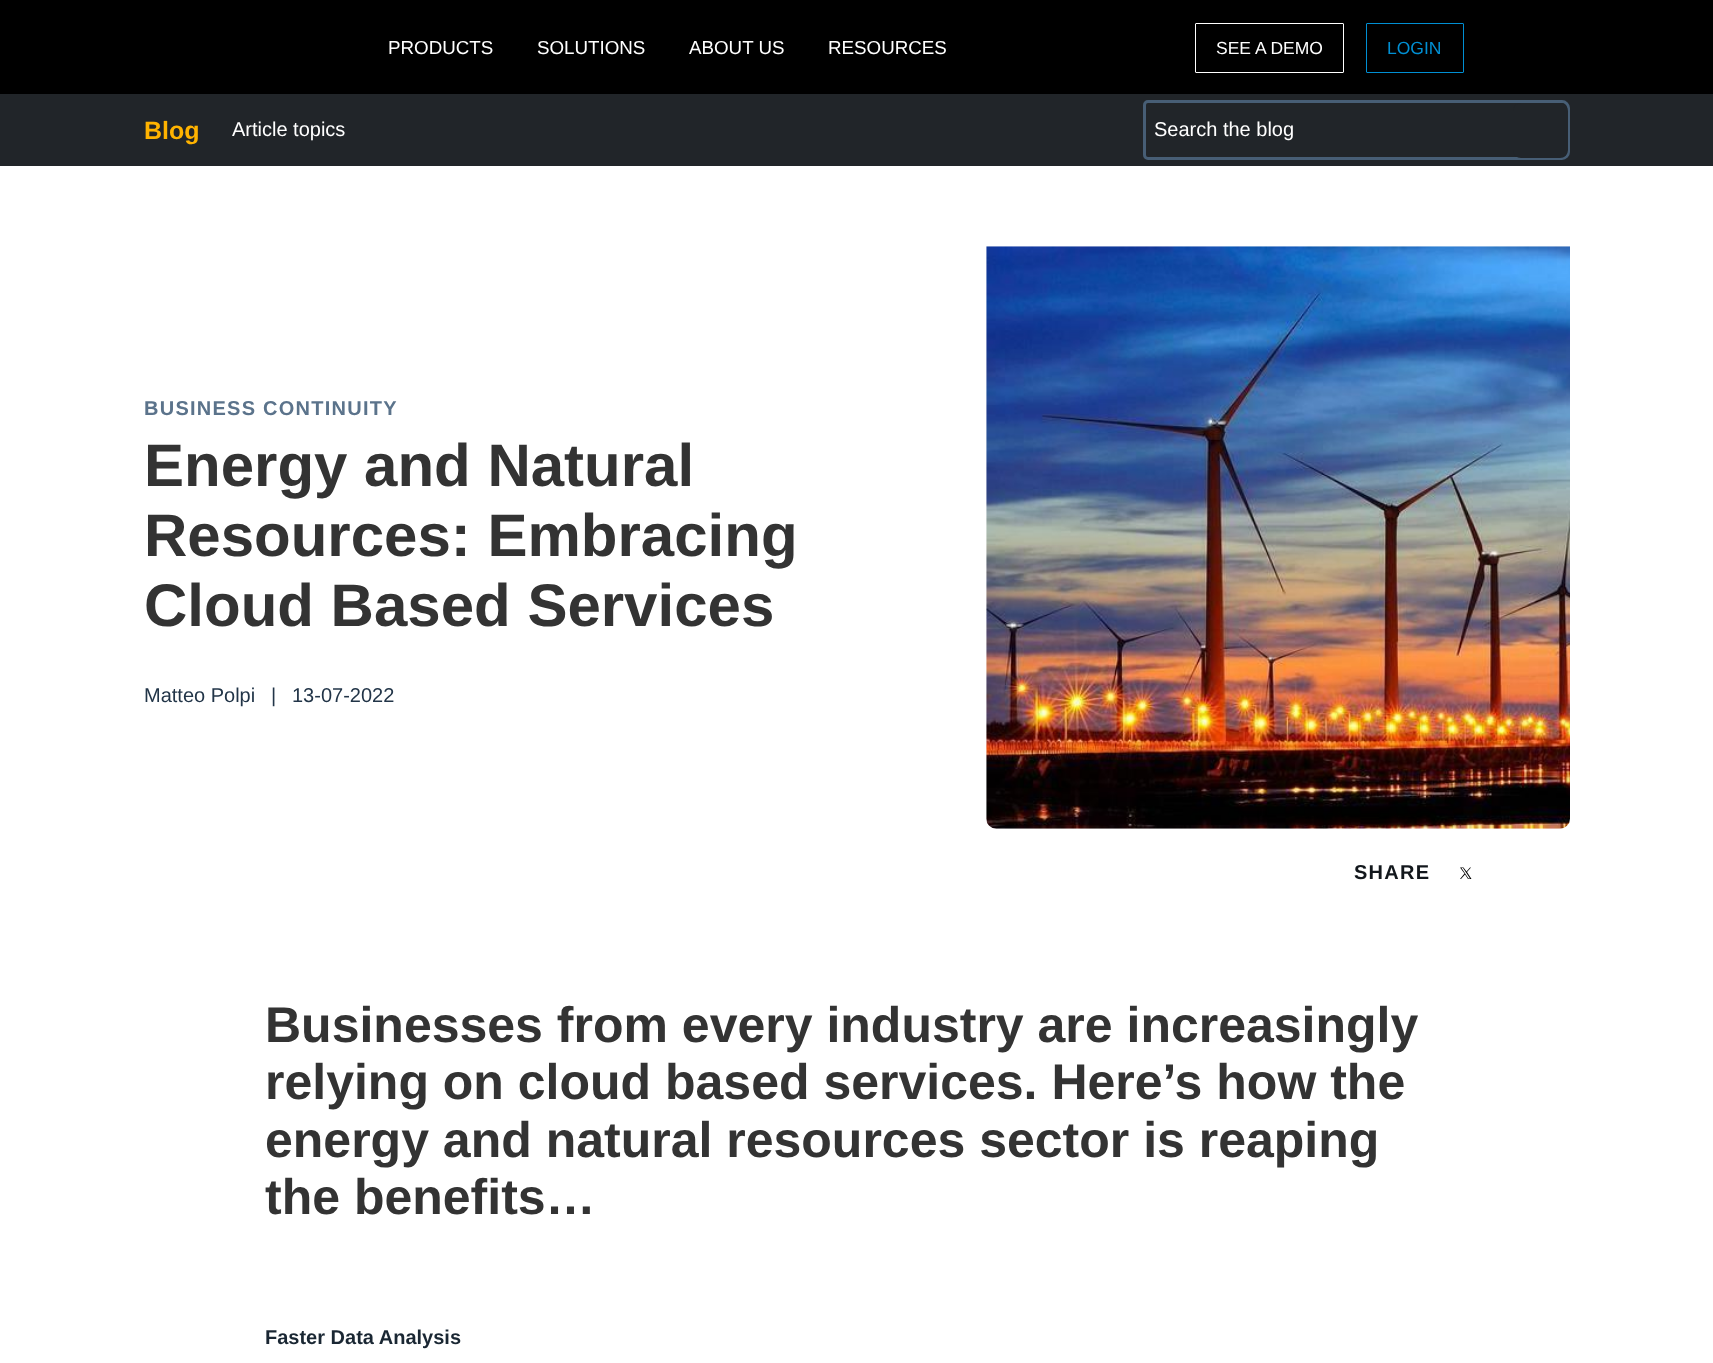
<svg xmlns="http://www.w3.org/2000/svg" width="1713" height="1363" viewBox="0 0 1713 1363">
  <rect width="100%" height="100%" fill="#ffffff"/>
  <rect x="0" y="0" width="1713" height="94" fill="#000000"/>
  <text x="388" y="54" font-family="Liberation Sans" font-size="18.75" fill="#ffffff">PRODUCTS</text>
  <text x="537" y="54" font-family="Liberation Sans" font-size="18.75" fill="#ffffff">SOLUTIONS</text>
  <text x="689" y="54" font-family="Liberation Sans" font-size="18.75" fill="#ffffff">ABOUT US</text>
  <text x="828" y="54" font-family="Liberation Sans" font-size="18.75" fill="#ffffff">RESOURCES</text>
  <rect x="1195.5" y="23.5" width="148" height="49" rx="0.5" fill="none" stroke="#ffffff"/>
  <text x="1216" y="54" font-family="Liberation Sans" font-size="17.5" fill="#ffffff">SEE A DEMO</text>
  <rect x="1366.5" y="23.5" width="97" height="49" rx="0.5" fill="none" stroke="#008fd3"/>
  <text x="1387" y="54" font-family="Liberation Sans" font-size="17.5" fill="#008fd3">LOGIN</text>
  <rect x="0" y="94" width="1713" height="72" fill="#212529"/>
  <text x="144" y="139" font-family="Liberation Sans" font-size="25" font-weight="bold" fill="#ffb300">Blog</text>
  <text x="232" y="136" font-family="Liberation Sans" font-size="20" fill="#ffffff">Article topics</text>
  <path d="M1148 101.5H1562C1565.5 101.5 1568.5 104.5 1568.5 108V152C1568.5 155.5 1565.5 158.5 1562 158.5H1148C1146 158.5 1144.5 157 1144.5 155V105C1144.5 103 1146 101.5 1148 101.5Z" fill="none" stroke="#475e75" stroke-width="3"/>
  <text x="1154" y="136" font-family="Liberation Sans" font-size="20" fill="#ffffff">Search the blog</text>
  <rect x="1513" y="103" width="55" height="55" rx="8" fill="#212529"/>
  <text x="144" y="415" font-family="Liberation Sans" font-size="20" font-weight="bold" letter-spacing="1.25" fill="#5b738b">BUSINESS CONTINUITY</text>
  <text x="144" y="486" font-family="Liberation Sans" font-size="60" font-weight="bold" fill="#333333">Energy and Natural</text>
  <text x="144" y="556" font-family="Liberation Sans" font-size="60" font-weight="bold" fill="#333333">Resources: Embracing</text>
  <text x="144" y="626" font-family="Liberation Sans" font-size="60" font-weight="bold" fill="#333333">Cloud Based Services</text>
  <text x="144" y="702" font-family="Liberation Sans" font-size="20" fill="#223548">Matteo Polpi</text>
  <text x="271" y="702" font-family="Liberation Sans" font-size="20" fill="#223548">|</text>
  <text x="292" y="702" font-family="Liberation Sans" font-size="20" fill="#223548">13-07-2022</text>
  <image x="986" y="246" width="584" height="583" href="img1.png"/>
  <text x="1354" y="879" font-family="Liberation Sans" font-size="20" font-weight="bold" letter-spacing="1.25" fill="#12171c">SHARE</text>
  <path d="M1467 872L1471 867.5H1470L1466.5 871.5L1463.5 867.5H1460L1464.5 873.5L1460 879H1461L1465 874.5L1468 879H1471.5ZM1465.5 874L1461.5 868H1463L1470 878.5H1468.5Z" fill="#000000"/>
  <text x="265" y="1042" font-family="Liberation Sans" font-size="50" font-weight="bold" fill="#333333">Businesses from every industry are increasingly</text>
  <text x="265" y="1099" font-family="Liberation Sans" font-size="50" font-weight="bold" fill="#333333">relying on cloud based services. Here’s how the</text>
  <text x="265" y="1157" font-family="Liberation Sans" font-size="50" font-weight="bold" fill="#333333">energy and natural resources sector is reaping</text>
  <text x="265" y="1214" font-family="Liberation Sans" font-size="50" font-weight="bold" fill="#333333">the benefits…</text>
  <text x="265" y="1344" font-family="Liberation Sans" font-size="20" font-weight="bold" fill="#1a2733">Faster Data Analysis</text>
</svg>
